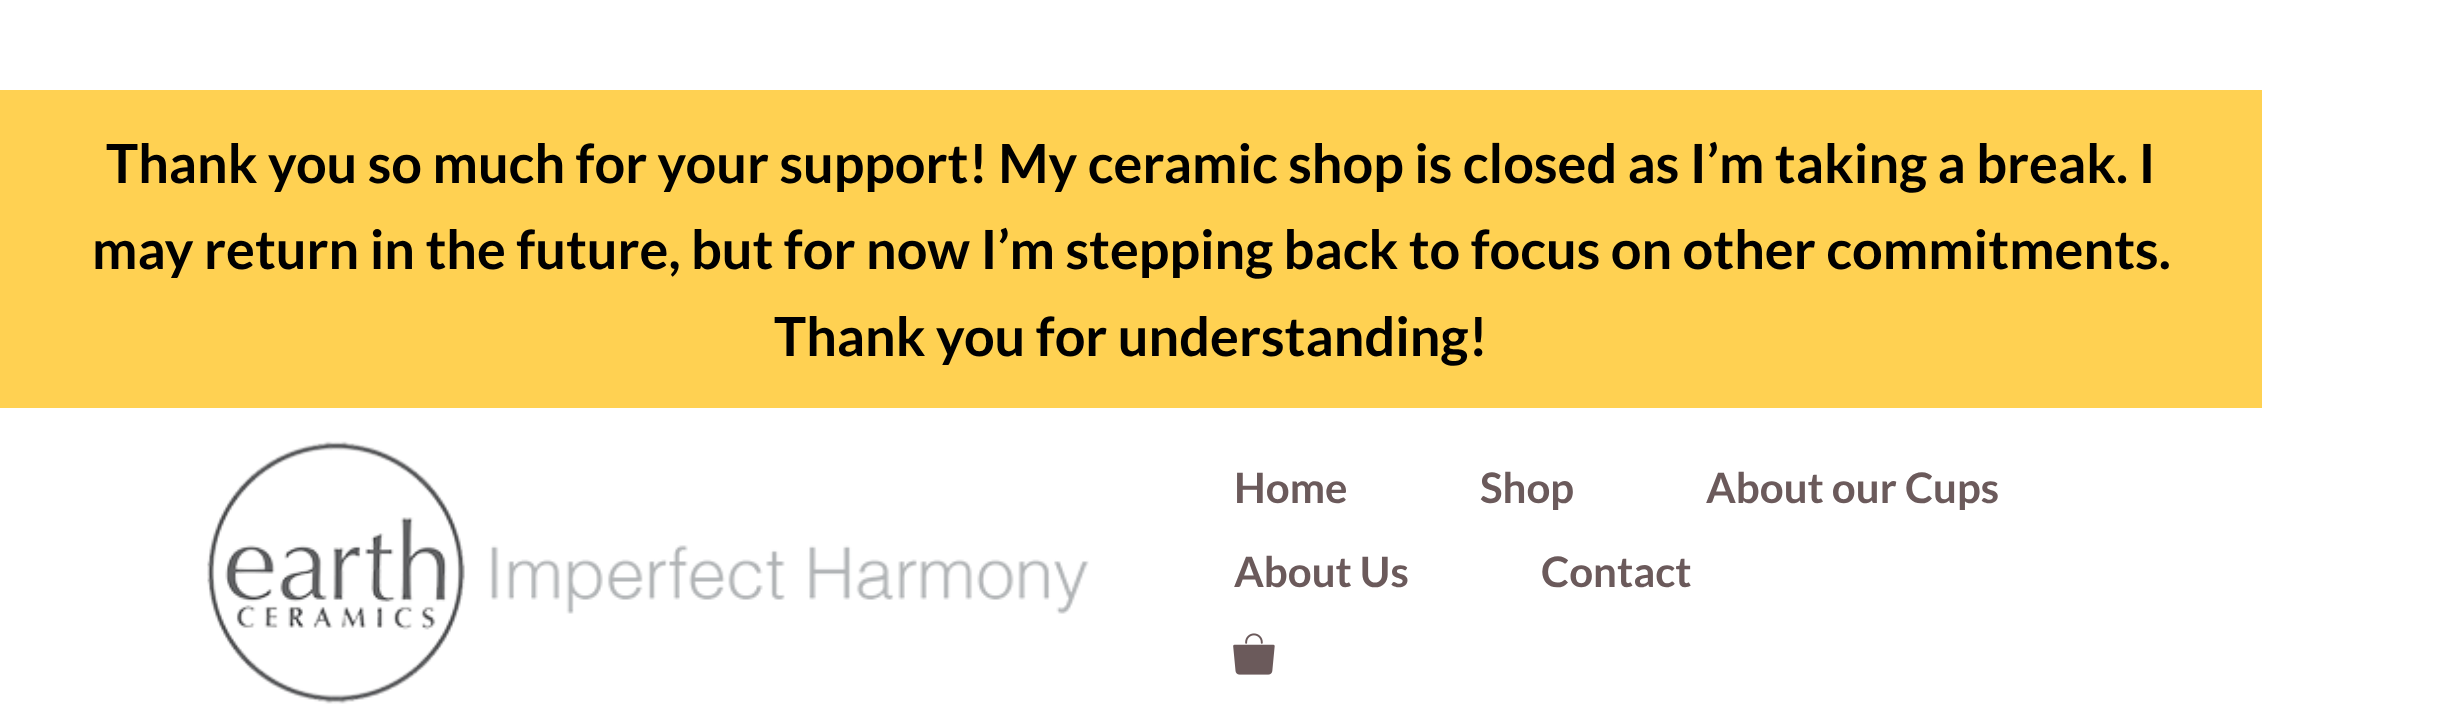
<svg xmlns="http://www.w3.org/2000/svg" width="2440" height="710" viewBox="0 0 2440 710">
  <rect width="100%" height="100%" fill="#ffffff"/>
  <rect x="0" y="90" width="2262" height="318" fill="#ffd152"/>
  <text x="106" y="183" font-family="Lato" font-size="54" font-weight="bold" fill="#000000">Thank you so much for your support! My ceramic shop is closed as I’m taking a break. I</text>
  <text x="92" y="269" font-family="Lato" font-size="54" font-weight="bold" fill="#000000">may return in the future, but for now I’m stepping back to focus on other commitments.</text>
  <text x="774" y="356" font-family="Lato" font-size="54" font-weight="bold" fill="#000000">Thank you for understanding!</text>
  <image x="207" y="441" width="882" height="263" href="img1.png"/>
  <text x="1234" y="503" font-family="Lato" font-size="42" font-weight="bold" fill="#6b5a5b">Home</text>
  <text x="1480" y="503" font-family="Lato" font-size="42" font-weight="bold" fill="#6b5a5b">Shop</text>
  <text x="1706" y="503" font-family="Lato" font-size="42" font-weight="bold" fill="#6b5a5b">About our Cups</text>
  <text x="1234" y="587" font-family="Lato" font-size="42" font-weight="bold" fill="#6b5a5b">About Us</text>
  <text x="1541" y="587" font-family="Lato" font-size="42" font-weight="bold" fill="#6b5a5b">Contact</text>
  <image x="1233" y="633" width="42" height="42" href="img2.png"/>
</svg>
